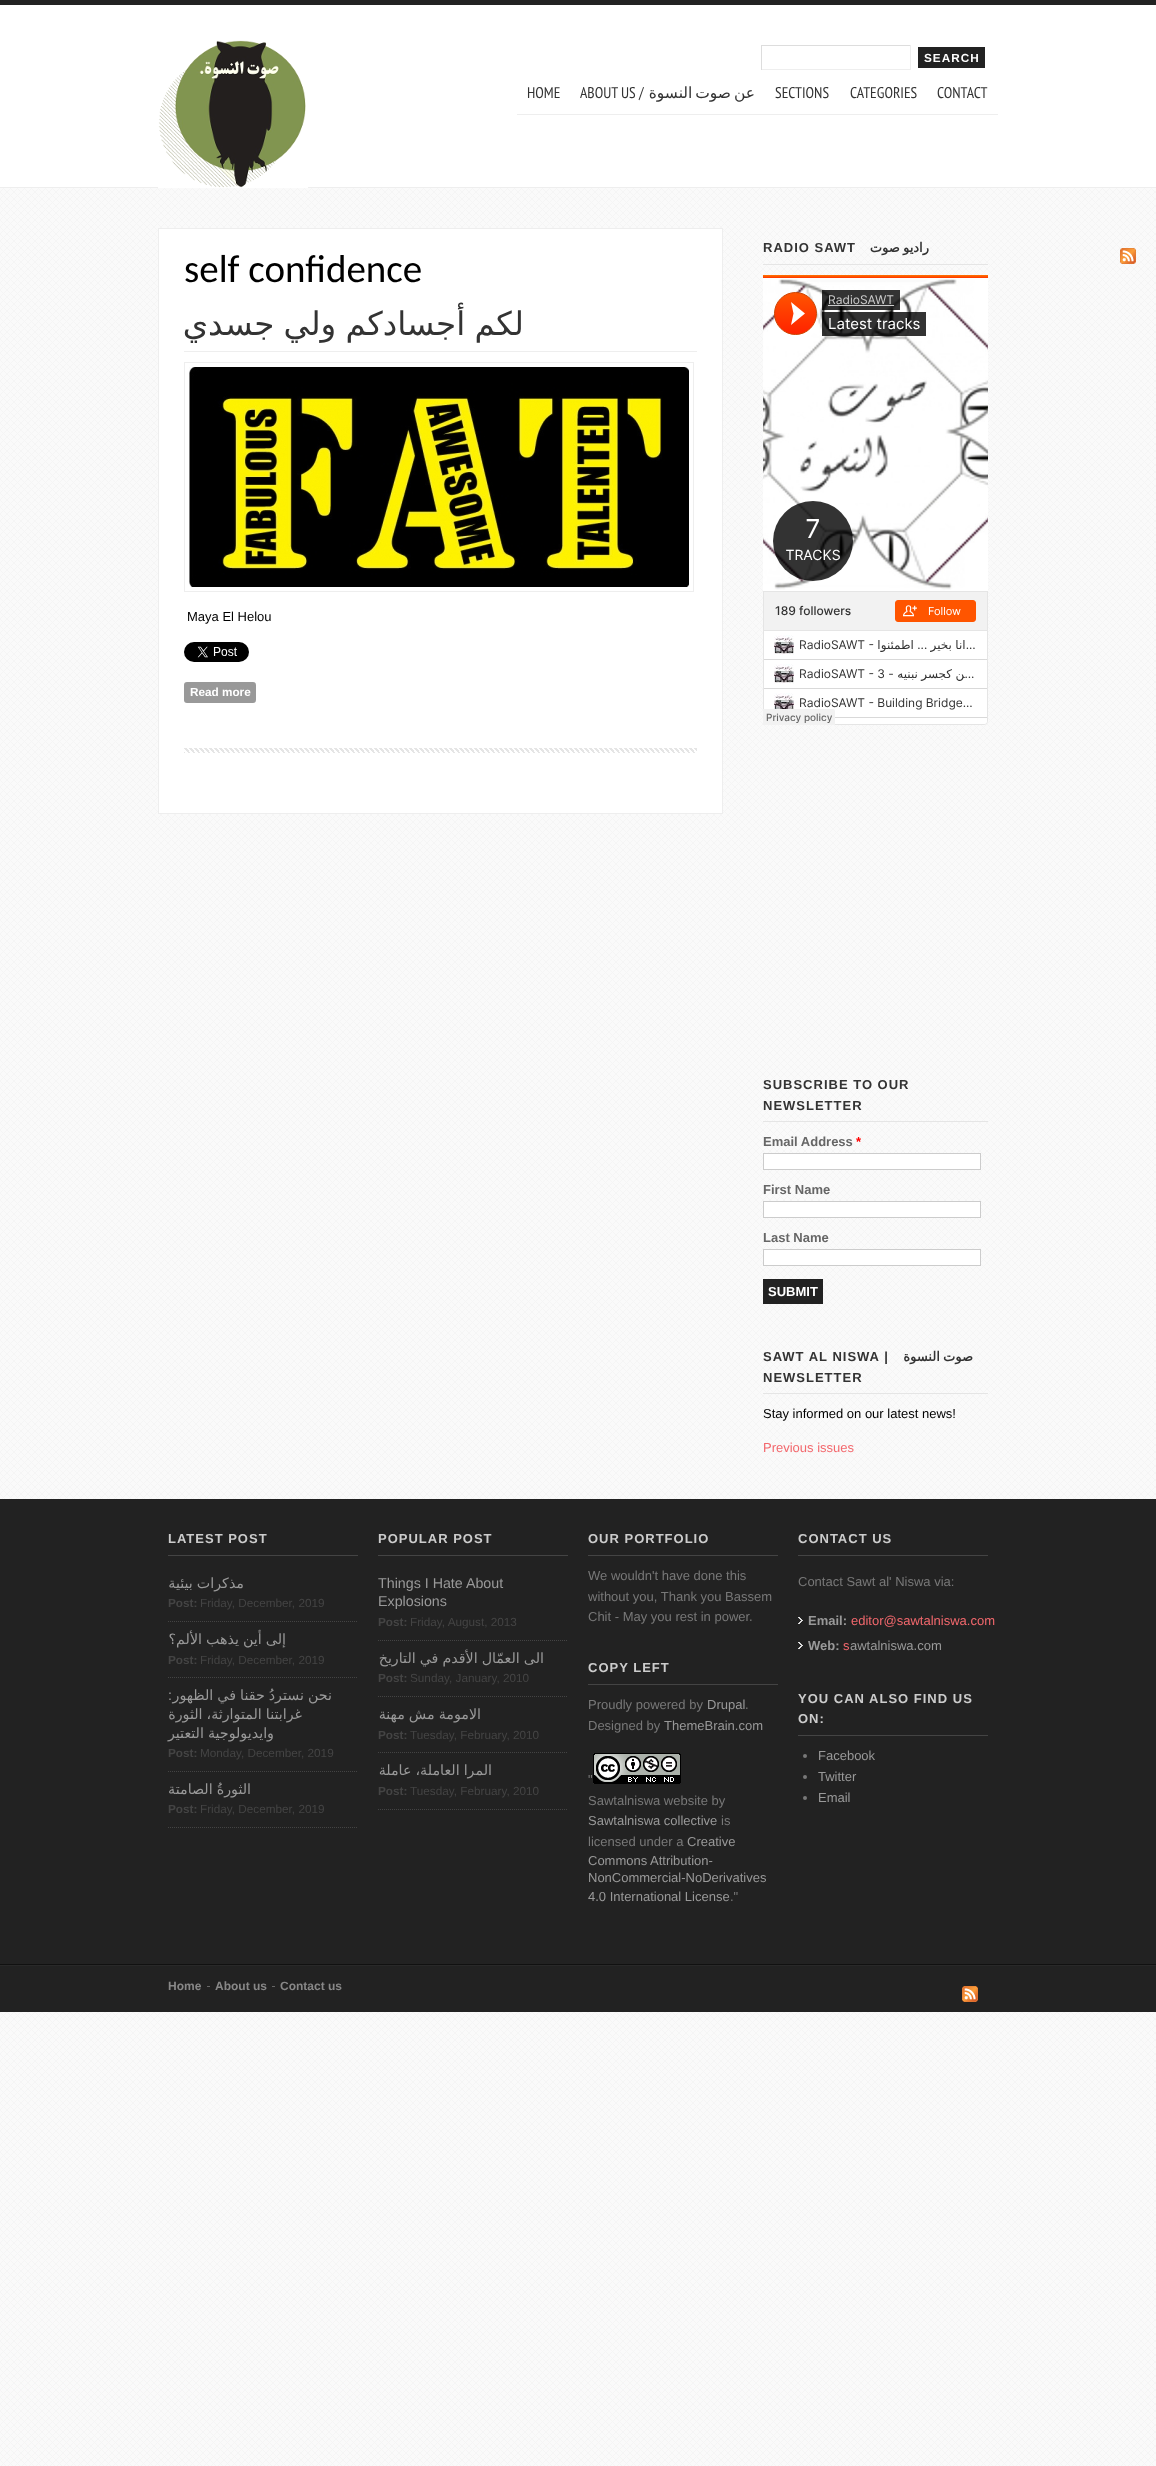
<svg xmlns="http://www.w3.org/2000/svg" width="1156" height="2466" viewBox="0 0 1156 2466">
  <rect width="100%" height="100%" fill="#ffffff"/>
  <image x="0" y="188" width="1156" height="2278" href="img1.png"/>
  <rect x="0" y="187" width="1156" height="1" fill="#eeeeee"/>
  <rect x="0" y="0" width="1156" height="5" fill="#222222"/>
  <image x="158" y="40" width="150" height="148" href="img2.png"/>
  <rect x="761" y="45" width="150" height="1" fill="#dddddd"/>
  <rect x="910" y="45" width="1" height="25" fill="#eeeeee"/>
  <rect x="761" y="69" width="150" height="1" fill="#eeeeee"/>
  <rect x="761" y="45" width="1" height="25" fill="#dddddd"/>
  <rect x="918" y="47" width="67" height="21" fill="#222222"/>
  <text x="924" y="62" font-family="Liberation Sans" font-size="11.75" font-weight="bold" letter-spacing="1" fill="#ffffff">SEARCH</text>
  <rect x="517" y="114" width="481" height="1" fill="#eeeeee"/>
  <text x="527" y="98" font-family="PT Sans Narrow" font-size="15.5" fill="#333333">HOME</text>
  <text x="580" y="98" font-family="PT Sans Narrow" font-size="15.5" fill="#333333">ABOUT US /</text>
  <text x="755" y="98" word-spacing="-2" font-family="DejaVu Sans" font-size="15.5" direction="rtl" fill="#333333">عن صوت النسوة</text>
  <text x="775" y="98" font-family="PT Sans Narrow" font-size="15.5" fill="#333333">SECTIONS</text>
  <text x="850" y="98" font-family="PT Sans Narrow" font-size="15.5" fill="#333333">CATEGORIES</text>
  <text x="937" y="98" font-family="PT Sans Narrow" font-size="15.5" fill="#333333">CONTACT</text>
  <rect x="158.5" y="228.5" width="564" height="585" fill="#ffffff" stroke="#eeeeee"/>
  <text x="184" y="282" font-family="Carlito" font-size="39" fill="#000000">self confidence</text>
  <image x="184" y="748" width="513" height="5" href="img3.png"/>
  <rect x="184" y="351" width="513" height="1" fill="#eeeeee"/>
  <text x="524" y="335" word-spacing="-1" font-family="DejaVu Sans" font-size="32.5" direction="rtl" fill="#333333">لكم أجسادكم ولي جسدي</text>
  <rect x="184.5" y="362.5" width="509" height="229" fill="none" stroke="#eeeeee"/>
  <image x="189" y="367" width="500" height="220" href="img4.png"/>
  <text x="187" y="621" font-family="Liberation Sans" font-size="13" fill="#000000">Maya El Helou</text>
  <image x="184" y="642" width="65" height="20" href="img5.png"/>
  <rect x="184" y="682" width="72" height="21" rx="3" fill="#999999"/>
  <text x="190" y="696" font-family="Liberation Sans" font-size="11.75" font-weight="bold" fill="#ffffff">Read more</text>
  <rect x="763" y="264" width="225" height="1" fill="#e5e5e5"/>
  <text x="763" y="252" font-family="Liberation Sans" font-size="13" font-weight="bold" letter-spacing="1" fill="#333333">RADIO SAWT</text>
  <text x="929" y="252" word-spacing="-1" font-family="DejaVu Sans" font-size="13" font-weight="bold" letter-spacing="1" direction="rtl" fill="#333333">راديو صوت</text>
  <image x="763" y="275" width="225" height="450" href="img6.png"/>
  <rect x="763" y="1121" width="225" height="1" fill="#e5e5e5"/>
  <text x="763" y="1089" font-family="Liberation Sans" font-size="13" font-weight="bold" letter-spacing="1" fill="#333333">SUBSCRIBE TO OUR</text>
  <text x="763" y="1110" font-family="Liberation Sans" font-size="13" font-weight="bold" letter-spacing="1" fill="#333333">NEWSLETTER</text>
  <text x="763" y="1146" font-family="Liberation Sans" font-size="13" font-weight="bold" fill="#666666">Email Address</text>
  <text x="856" y="1146" font-family="Liberation Sans" font-size="13" font-weight="bold" fill="#ff0000">*</text>
  <rect x="763.5" y="1153.5" width="217" height="16" fill="#ffffff" stroke="#cccccc"/>
  <text x="763" y="1194" font-family="Liberation Sans" font-size="13" font-weight="bold" fill="#666666">First Name</text>
  <rect x="763.5" y="1201.5" width="217" height="16" fill="#ffffff" stroke="#cccccc"/>
  <text x="763" y="1242" font-family="Liberation Sans" font-size="13" font-weight="bold" fill="#666666">Last Name</text>
  <rect x="763.5" y="1249.5" width="217" height="16" fill="#ffffff" stroke="#cccccc"/>
  <rect x="763" y="1279" width="60" height="25" fill="#222222"/>
  <text x="768" y="1296" font-family="Liberation Sans" font-size="13" font-weight="bold" fill="#ffffff">SUBMIT</text>
  <rect x="763" y="1393" width="225" height="1" fill="#e5e5e5"/>
  <text x="763" y="1361" font-family="Liberation Sans" font-size="13" font-weight="bold" letter-spacing="1" fill="#333333">SAWT AL NISWA |</text>
  <text x="973" y="1361" word-spacing="-1" font-family="DejaVu Sans" font-size="13" font-weight="bold" letter-spacing="1" direction="rtl" fill="#333333">صوت النسوة</text>
  <text x="763" y="1382" font-family="Liberation Sans" font-size="13" font-weight="bold" letter-spacing="1" fill="#333333">NEWSLETTER</text>
  <image x="1120" y="248" width="16" height="16" href="img7.png"/>
  <text x="763" y="1418" font-family="Liberation Sans" font-size="13" fill="#000000">Stay informed on our latest news!</text>
  <text x="763" y="1452" font-family="Liberation Sans" font-size="13" fill="#f3686d">Previous issues</text>
  <rect x="0" y="1499" width="1156" height="465" fill="#222222"/>
  <rect x="0" y="1964" width="1156" height="1" fill="#111111"/>
  <rect x="168" y="1555" width="190" height="1" fill="#444444"/>
  <text x="168" y="1543" font-family="Liberation Sans" font-size="13" font-weight="bold" letter-spacing="1" fill="#cccccc">LATEST POST</text>
  <path d="M168 1621.5H358" fill="none" stroke="#444444" stroke-dasharray="1 1"/>
  <text x="244" y="1588" word-spacing="-0.5" font-family="DejaVu Sans" font-size="14.25" direction="rtl" fill="#999999">مذكرات بيئية</text>
  <text x="168" y="1607" font-family="Liberation Sans" font-size="11.75" font-weight="bold" fill="#444444">Post:</text>
  <text x="200" y="1607" font-family="Liberation Sans" font-size="11.75" fill="#444444">Friday, December, 2019</text>
  <path d="M168 1677.5H358" fill="none" stroke="#444444" stroke-dasharray="1 1"/>
  <text x="286" y="1644" word-spacing="-0.5" font-family="DejaVu Sans" font-size="14.25" direction="rtl" fill="#999999">إلى أين يذهب الألم؟</text>
  <text x="168" y="1664" font-family="Liberation Sans" font-size="11.75" font-weight="bold" fill="#444444">Post:</text>
  <text x="200" y="1664" font-family="Liberation Sans" font-size="11.75" fill="#444444">Friday, December, 2019</text>
  <path d="M168 1771.5H358" fill="none" stroke="#444444" stroke-dasharray="1 1"/>
  <text x="172" y="1700" font-family="Liberation Sans" font-size="14.25" direction="rtl" fill="#999999">:</text>
  <text x="332" y="1700" word-spacing="-0.5" font-family="DejaVu Sans" font-size="14.25" direction="rtl" fill="#999999">نحن نستردُ حقنا في الظهور</text>
  <text x="302" y="1719" word-spacing="-0.5" font-family="DejaVu Sans" font-size="14.25" direction="rtl" fill="#999999">غرابتنا المتوارثة، الثورة</text>
  <text x="274" y="1738" word-spacing="-0.5" font-family="DejaVu Sans" font-size="14.25" direction="rtl" fill="#999999">وايديولوجية التعتير</text>
  <text x="168" y="1757" font-family="Liberation Sans" font-size="11.75" font-weight="bold" fill="#444444">Post:</text>
  <text x="200" y="1757" font-family="Liberation Sans" font-size="11.75" fill="#444444">Monday, December, 2019</text>
  <path d="M168 1827.5H358" fill="none" stroke="#444444" stroke-dasharray="1 1"/>
  <text x="251" y="1794" word-spacing="-0.5" font-family="DejaVu Sans" font-size="14.25" direction="rtl" fill="#999999">الثورةُ الصامتة</text>
  <text x="168" y="1813" font-family="Liberation Sans" font-size="11.75" font-weight="bold" fill="#444444">Post:</text>
  <text x="200" y="1813" font-family="Liberation Sans" font-size="11.75" fill="#444444">Friday, December, 2019</text>
  <rect x="378" y="1555" width="190" height="1" fill="#444444"/>
  <text x="378" y="1543" font-family="Liberation Sans" font-size="13" font-weight="bold" letter-spacing="1" fill="#cccccc">POPULAR POST</text>
  <path d="M378 1640.5H568" fill="none" stroke="#444444" stroke-dasharray="1 1"/>
  <text x="378" y="1588" font-family="Liberation Sans" font-size="14.25" fill="#999999">Things I Hate About</text>
  <text x="378" y="1606" font-family="Liberation Sans" font-size="14.25" fill="#999999">Explosions</text>
  <text x="378" y="1626" font-family="Liberation Sans" font-size="11.75" font-weight="bold" fill="#444444">Post:</text>
  <text x="410" y="1626" font-family="Liberation Sans" font-size="11.75" fill="#444444">Friday, August, 2013</text>
  <path d="M378 1696.5H568" fill="none" stroke="#444444" stroke-dasharray="1 1"/>
  <text x="544" y="1663" word-spacing="-0.5" font-family="DejaVu Sans" font-size="14.25" direction="rtl" fill="#999999">الى العمّال الأقدم في التاريخ</text>
  <text x="378" y="1682" font-family="Liberation Sans" font-size="11.75" font-weight="bold" fill="#444444">Post:</text>
  <text x="410" y="1682" font-family="Liberation Sans" font-size="11.75" fill="#444444">Sunday, January, 2010</text>
  <path d="M378 1752.5H568" fill="none" stroke="#444444" stroke-dasharray="1 1"/>
  <text x="481" y="1719" word-spacing="-0.5" font-family="DejaVu Sans" font-size="14.25" direction="rtl" fill="#999999">الامومة مش مهنة</text>
  <text x="378" y="1739" font-family="Liberation Sans" font-size="11.75" font-weight="bold" fill="#444444">Post:</text>
  <text x="410" y="1739" font-family="Liberation Sans" font-size="11.75" fill="#444444">Tuesday, February, 2010</text>
  <path d="M378 1809.5H568" fill="none" stroke="#444444" stroke-dasharray="1 1"/>
  <text x="492" y="1775" word-spacing="-0.5" font-family="DejaVu Sans" font-size="14.25" direction="rtl" fill="#999999">المرا العاملة، عاملة</text>
  <text x="378" y="1795" font-family="Liberation Sans" font-size="11.75" font-weight="bold" fill="#444444">Post:</text>
  <text x="410" y="1795" font-family="Liberation Sans" font-size="11.75" fill="#444444">Tuesday, February, 2010</text>
  <rect x="588" y="1555" width="190" height="1" fill="#444444"/>
  <text x="588" y="1543" font-family="Liberation Sans" font-size="13" font-weight="bold" letter-spacing="1" fill="#cccccc">OUR PORTFOLIO</text>
  <text x="588" y="1580" font-family="Liberation Sans" font-size="13" fill="#787878">We wouldn't have done this</text>
  <text x="588" y="1601" font-family="Liberation Sans" font-size="13" fill="#787878">without you, Thank you Bassem</text>
  <text x="588" y="1621" font-family="Liberation Sans" font-size="13" fill="#787878">Chit - May you rest in power.</text>
  <rect x="588" y="1684" width="190" height="1" fill="#444444"/>
  <text x="588" y="1672" font-family="Liberation Sans" font-size="13" font-weight="bold" letter-spacing="1" fill="#cccccc">COPY LEFT</text>
  <text x="588" y="1709" font-family="Liberation Sans" font-size="13" fill="#787878">Proudly powered by</text>
  <text x="707" y="1709" font-family="Liberation Sans" font-size="13" fill="#999999">Drupal</text>
  <text x="745" y="1709" font-family="Liberation Sans" font-size="13" fill="#787878">.</text>
  <text x="588" y="1730" font-family="Liberation Sans" font-size="13" fill="#787878">Designed by</text>
  <text x="664" y="1730" font-family="Liberation Sans" font-size="13" fill="#999999">ThemeBrain.com</text>
  <text x="588" y="1784" font-family="Liberation Sans" font-size="13" fill="#787878">"</text>
  <image x="593" y="1753" width="88" height="31" href="img8.png"/>
  <text x="588" y="1805" font-family="Liberation Sans" font-size="13" fill="#787878">Sawtalniswa website by</text>
  <text x="588" y="1825" font-family="Liberation Sans" font-size="13" fill="#999999">Sawtalniswa collective</text>
  <text x="721" y="1825" font-family="Liberation Sans" font-size="13" fill="#787878">is</text>
  <text x="588" y="1846" font-family="Liberation Sans" font-size="13" fill="#787878">licensed under a</text>
  <text x="687" y="1846" font-family="Liberation Sans" font-size="13" fill="#999999">Creative</text>
  <text x="588" y="1865" font-family="Liberation Sans" font-size="13" fill="#999999">Commons</text>
  <text x="650" y="1865" font-family="Liberation Sans" font-size="13" fill="#999999">Attribution-</text>
  <text x="588" y="1882" font-family="Liberation Sans" font-size="13" fill="#999999">NonCommercial-NoDerivatives</text>
  <text x="588" y="1901" font-family="Liberation Sans" font-size="13" fill="#999999">4.0 International License</text>
  <text x="730" y="1901" font-family="Liberation Sans" font-size="13" fill="#787878">."</text>
  <rect x="798" y="1555" width="190" height="1" fill="#444444"/>
  <text x="798" y="1543" font-family="Liberation Sans" font-size="13" font-weight="bold" letter-spacing="1" fill="#cccccc">CONTACT US</text>
  <text x="798" y="1586" font-family="Liberation Sans" font-size="13" fill="#787878">Contact Sawt al' Niswa via:</text>
  <image x="798" y="1617" width="5" height="7" href="img9.png"/>
  <text x="808" y="1625" font-family="Liberation Sans" font-size="13" font-weight="bold" fill="#999999">Email:</text>
  <text x="851" y="1625" font-family="Liberation Sans" font-size="13" fill="#f3686d">editor@sawtalniswa.com</text>
  <image x="798" y="1642" width="5" height="7" href="img9.png"/>
  <text x="808" y="1650" font-family="Liberation Sans" font-size="13" font-weight="bold" fill="#999999">Web:</text>
  <text x="843" y="1650" font-family="Liberation Sans" font-size="13" fill="#f3686d">s</text>
  <text x="850" y="1650" font-family="Liberation Sans" font-size="13" fill="#999999">awtalniswa.com</text>
  <rect x="798" y="1735" width="190" height="1" fill="#444444"/>
  <text x="798" y="1703" font-family="Liberation Sans" font-size="13" font-weight="bold" letter-spacing="1" fill="#cccccc">YOU CAN ALSO FIND US</text>
  <text x="798" y="1723" font-family="Liberation Sans" font-size="13" font-weight="bold" letter-spacing="1" fill="#cccccc">ON:</text>
  <circle cx="805" cy="1756" r="2" fill="#787878"/>
  <text x="818" y="1760" font-family="Liberation Sans" font-size="13" fill="#999999">Facebook</text>
  <circle cx="805" cy="1777" r="2" fill="#787878"/>
  <text x="818" y="1781" font-family="Liberation Sans" font-size="13" fill="#999999">Twitter</text>
  <circle cx="805" cy="1798" r="2" fill="#787878"/>
  <text x="818" y="1802" font-family="Liberation Sans" font-size="13" fill="#999999">Email</text>
  <rect x="0" y="1966" width="1156" height="46" fill="#222222"/>
  <rect x="0" y="1965" width="1156" height="1" fill="#292929"/>
  <text x="168" y="1990" font-family="Liberation Sans" font-size="12" font-weight="bold" fill="#888888">Home</text>
  <text x="215" y="1990" font-family="Liberation Sans" font-size="12" font-weight="bold" fill="#888888">About us</text>
  <rect x="207" y="1986" width="3" height="1" fill="#666666"/>
  <text x="280" y="1990" font-family="Liberation Sans" font-size="12" font-weight="bold" fill="#888888">Contact us</text>
  <rect x="272" y="1986" width="3" height="1" fill="#666666"/>
  <image x="962" y="1986" width="16" height="16" href="img10.png"/>
</svg>
